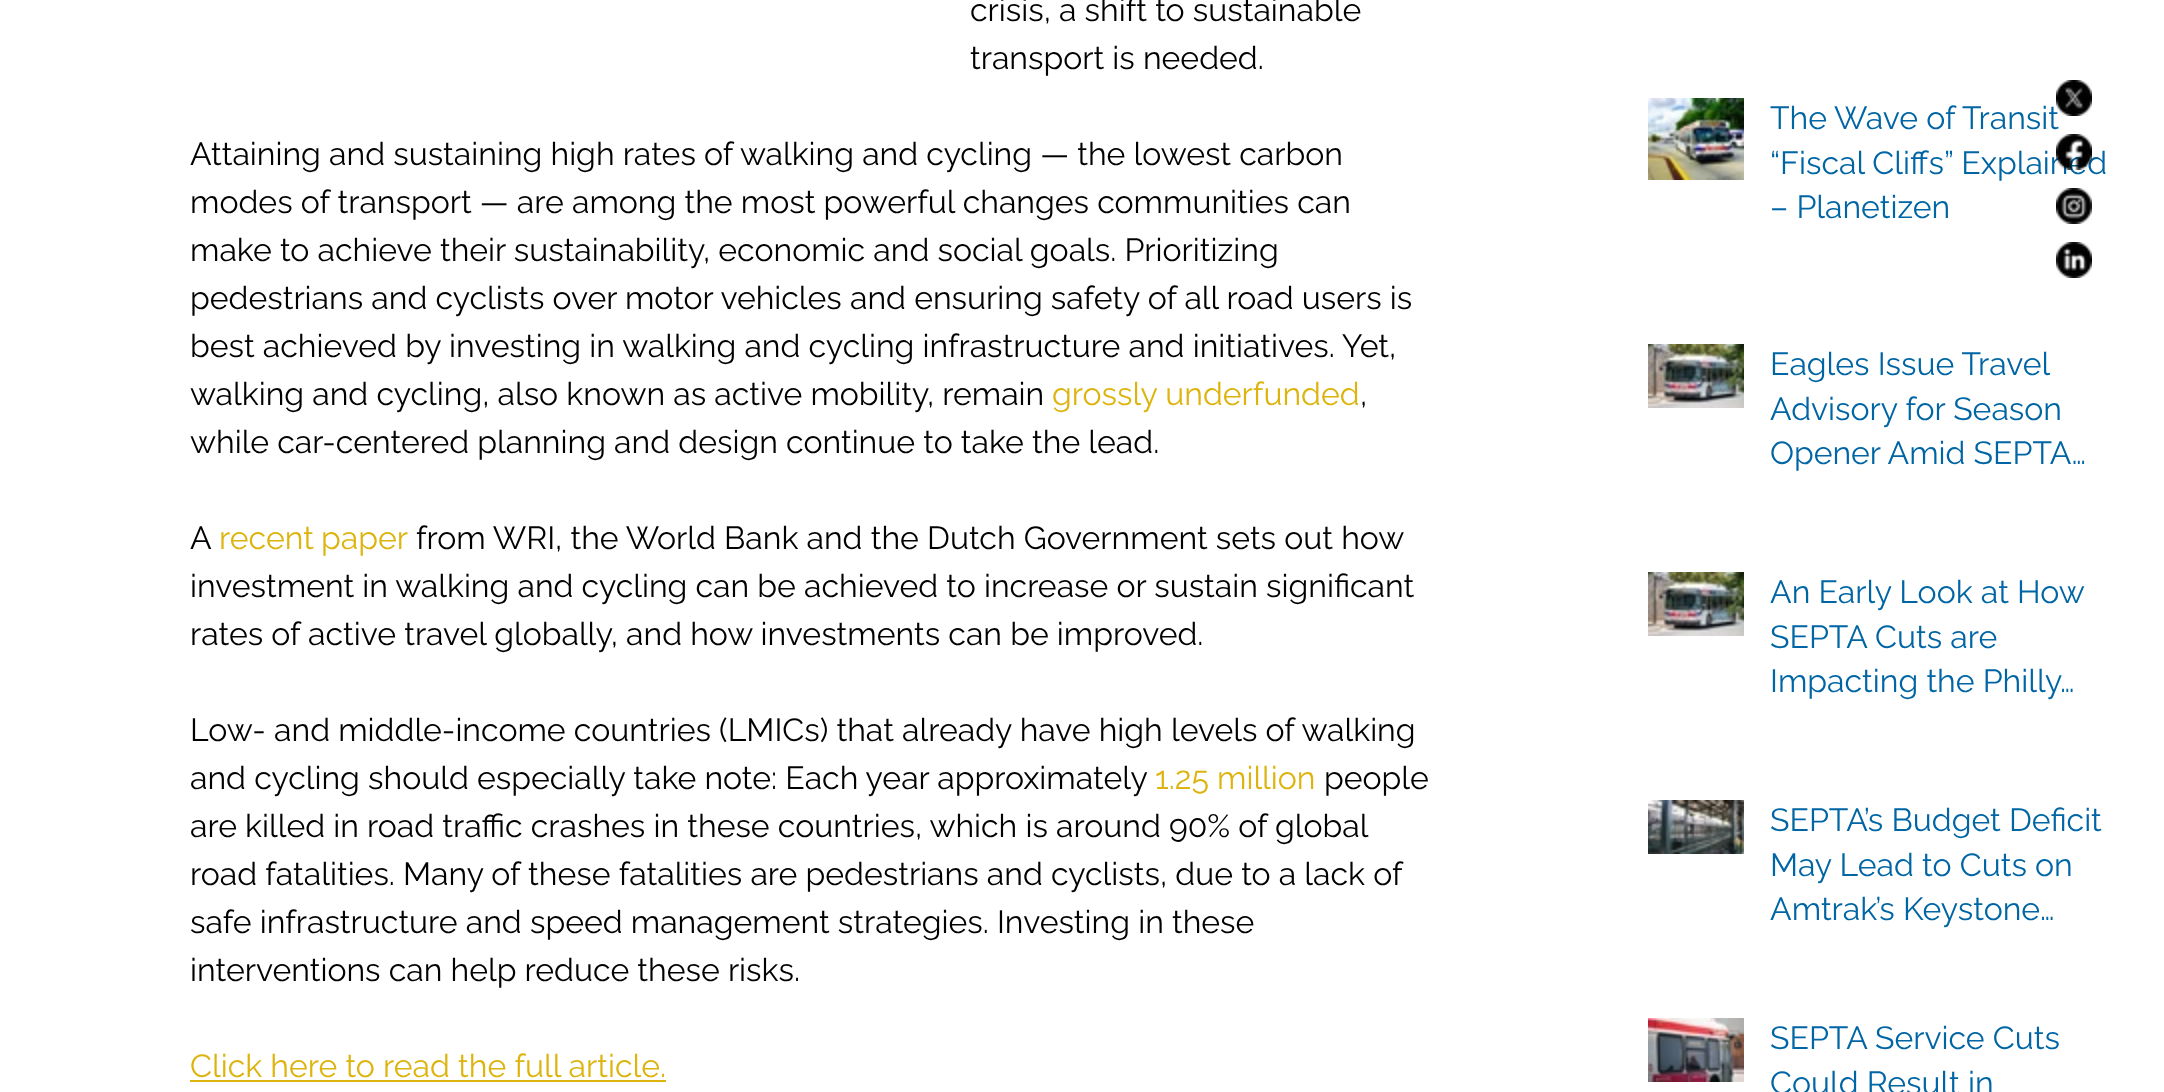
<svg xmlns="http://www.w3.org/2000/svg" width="2164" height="1092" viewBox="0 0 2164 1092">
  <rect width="100%" height="100%" fill="#ffffff"/>
  <text x="970" y="21" font-family="Raleway" font-size="32" fill="#000000">crisis, a shift to sustainable</text>
  <text x="970" y="69" font-family="Raleway" font-size="32" fill="#000000">transport is needed.</text>
  <text x="190" y="165" font-family="Raleway" font-size="32" fill="#000000">Attaining and sustaining high rates of walking and cycling — the lowest carbon</text>
  <text x="190" y="213" font-family="Raleway" font-size="32" fill="#000000">modes of transport — are among the most powerful changes communities can</text>
  <text x="190" y="261" font-family="Raleway" font-size="32" fill="#000000">make to achieve their sustainability, economic and social goals. Prioritizing</text>
  <text x="190" y="309" font-family="Raleway" font-size="32" fill="#000000">pedestrians and cyclists over motor vehicles and ensuring safety of all road users is</text>
  <text x="190" y="357" font-family="Raleway" font-size="32" fill="#000000">best achieved by investing in walking and cycling infrastructure and initiatives. Yet,</text>
  <text x="190" y="405" font-family="Raleway" font-size="32" fill="#000000">walking and cycling, also known as active mobility, remain</text>
  <text x="1052" y="405" font-family="Raleway" font-size="32" fill="#ddb40d">grossly underfunded</text>
  <text x="1360" y="405" font-family="Raleway" font-size="32" fill="#000000">,</text>
  <text x="190" y="453" font-family="Raleway" font-size="32" fill="#000000">while car-centered planning and design continue to take the lead.</text>
  <text x="190" y="549" font-family="Raleway" font-size="32" fill="#000000">A</text>
  <text x="219" y="549" word-spacing="-1" font-family="Raleway" font-size="32" fill="#ddb40d">recent paper</text>
  <text x="416" y="549" font-family="Raleway" font-size="32" fill="#000000">from WRI, the World Bank and the Dutch Government sets out how</text>
  <text x="190" y="597" font-family="Raleway" font-size="32" fill="#000000">investment in walking and cycling can be achieved to increase or sustain significant</text>
  <text x="190" y="645" font-family="Raleway" font-size="32" fill="#000000">rates of active travel globally, and how investments can be improved.</text>
  <text x="190" y="741" font-family="Raleway" font-size="32" fill="#000000">Low- and middle-income countries (LMICs) that already have high levels of walking</text>
  <text x="190" y="789" font-family="Raleway" font-size="32" fill="#000000">and cycling should especially take note: Each year approximately</text>
  <text x="1155" y="789" font-family="Raleway" font-size="32" fill="#ddb40d">1.25 million</text>
  <text x="1324" y="789" font-family="Raleway" font-size="32" fill="#000000">people</text>
  <text x="190" y="837" font-family="Raleway" font-size="32" fill="#000000">are killed in road traffic crashes in these countries, which is around 90% of global</text>
  <text x="190" y="885" font-family="Raleway" font-size="32" fill="#000000">road fatalities. Many of these fatalities are pedestrians and cyclists, due to a lack of</text>
  <text x="190" y="933" font-family="Raleway" font-size="32" fill="#000000">safe infrastructure and speed management strategies. Investing in these</text>
  <text x="190" y="981" font-family="Raleway" font-size="32" fill="#000000">interventions can help reduce these risks.</text>
  <text x="190" y="1077" font-family="Raleway" font-size="32" fill="#ddb40d">Click here to read the full article.</text>
  <rect x="190" y="1080" width="476" height="2" fill="#ddb40d"/>
  <image x="1648" y="98" width="96" height="82" href="img1.png"/>
  <text x="1770" y="129" font-family="Raleway" font-size="32" fill="#0065a4">The Wave of Transit</text>
  <text x="1770" y="174" font-family="Raleway" font-size="32" fill="#0065a4">“Fiscal Cliffs” Explained</text>
  <text x="1770" y="218" font-family="Raleway" font-size="32" fill="#0065a4">– Planetizen</text>
  <image x="1648" y="344" width="96" height="64" href="img2.png"/>
  <text x="1770" y="375" font-family="Raleway" font-size="32" fill="#0065a4">Eagles Issue Travel</text>
  <text x="1770" y="420" font-family="Raleway" font-size="32" fill="#0065a4">Advisory for Season</text>
  <text x="1770" y="464" font-family="Raleway" font-size="32" fill="#0065a4">Opener Amid SEPTA…</text>
  <image x="1648" y="572" width="96" height="64" href="img2.png"/>
  <text x="1770" y="603" font-family="Raleway" font-size="32" fill="#0065a4">An Early Look at How</text>
  <text x="1770" y="648" font-family="Raleway" font-size="32" fill="#0065a4">SEPTA Cuts are</text>
  <text x="1770" y="692" font-family="Raleway" font-size="32" fill="#0065a4">Impacting the Philly…</text>
  <image x="1648" y="800" width="96" height="54" href="img3.png"/>
  <text x="1770" y="831" font-family="Raleway" font-size="32" fill="#0065a4">SEPTA’s Budget Deficit</text>
  <text x="1770" y="876" font-family="Raleway" font-size="32" fill="#0065a4">May Lead to Cuts on</text>
  <text x="1770" y="920" font-family="Raleway" font-size="32" fill="#0065a4">Amtrak’s Keystone…</text>
  <image x="1648" y="1018" width="96" height="64" href="img4.png"/>
  <text x="1770" y="1049" font-family="Raleway" font-size="32" fill="#0065a4">SEPTA Service Cuts</text>
  <text x="1770" y="1094" font-family="Raleway" font-size="32" fill="#0065a4">Could Result in</text>
  <image x="2056" y="80" width="36" height="36" href="img5.png"/>
  <image x="2056" y="134" width="36" height="36" href="img6.png"/>
  <image x="2056" y="188" width="36" height="36" href="img7.png"/>
  <image x="2056" y="242" width="36" height="36" href="img8.png"/>
</svg>
